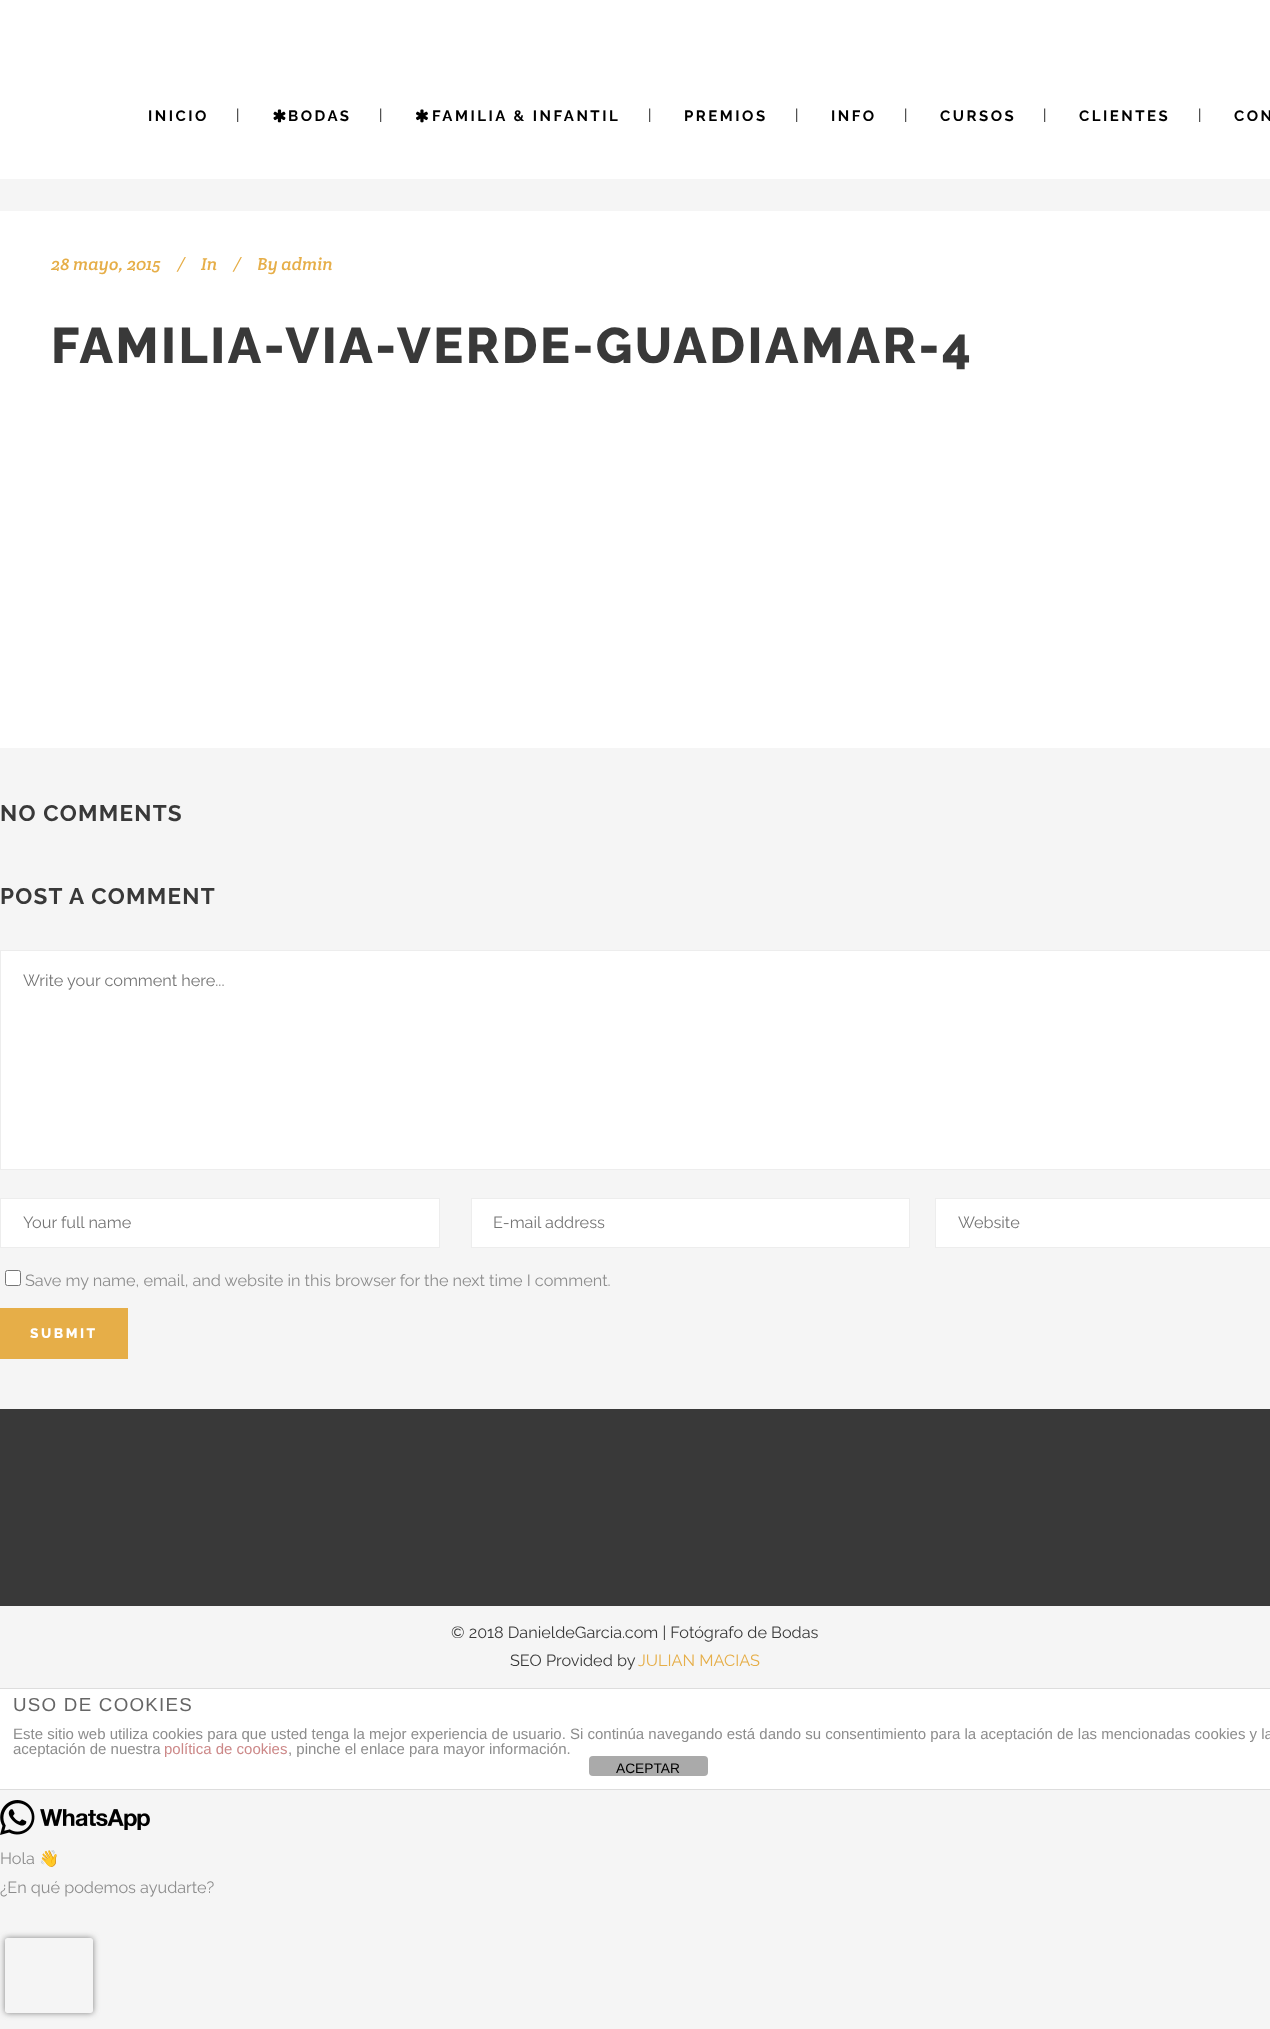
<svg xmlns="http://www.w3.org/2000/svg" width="1270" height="2029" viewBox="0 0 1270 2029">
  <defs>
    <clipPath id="clip1"><path d="M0 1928H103V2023H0ZM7.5 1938H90.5C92 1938 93 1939 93 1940.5V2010.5C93 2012 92 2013 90.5 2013H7.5C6 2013 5 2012 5 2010.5V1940.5C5 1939 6 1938 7.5 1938Z" clip-rule="evenodd"/></clipPath>
    <filter id="blur1" x="-50%" y="-200%" width="200%" height="500%"><feGaussianBlur stdDeviation="3"/></filter>
  </defs>
  <rect width="100%" height="100%" fill="#f5f5f5"/>
  <rect x="0" y="0" width="1270" height="179" fill="#ffffff"/>
  <text x="148" y="121" font-family="Raleway" font-size="15" font-weight="bold" letter-spacing="2.5" fill="#000000">INICIO</text>
  <text x="236" y="120" font-family="Raleway" font-size="15" fill="#000000">|</text>
  <image x="273" y="109" width="13" height="14" href="img1.png"/>
  <text x="288" y="121" font-family="Raleway" font-size="15" font-weight="bold" letter-spacing="2.5" fill="#000000">BODAS</text>
  <text x="379" y="120" font-family="Raleway" font-size="15" fill="#000000">|</text>
  <image x="416" y="109" width="12" height="14" href="img2.png"/>
  <text x="432" y="121" font-family="Raleway" font-size="15" font-weight="bold" letter-spacing="2.5" fill="#000000">FAMILIA &amp; INFANTIL</text>
  <text x="648" y="120" font-family="Raleway" font-size="15" fill="#000000">|</text>
  <text x="684" y="121" font-family="Raleway" font-size="15" font-weight="bold" letter-spacing="2.5" fill="#000000">PREMIOS</text>
  <text x="795" y="120" font-family="Raleway" font-size="15" fill="#000000">|</text>
  <text x="831" y="121" font-family="Raleway" font-size="15" font-weight="bold" letter-spacing="2.5" fill="#000000">INFO</text>
  <text x="904" y="120" font-family="Raleway" font-size="15" fill="#000000">|</text>
  <text x="940" y="121" font-family="Raleway" font-size="15" font-weight="bold" letter-spacing="2.5" fill="#000000">CURSOS</text>
  <text x="1043" y="120" font-family="Raleway" font-size="15" fill="#000000">|</text>
  <text x="1079" y="121" font-family="Raleway" font-size="15" font-weight="bold" letter-spacing="2.5" fill="#000000">CLIENTES</text>
  <text x="1198" y="120" font-family="Raleway" font-size="15" fill="#000000">|</text>
  <text x="1234" y="121" font-family="Raleway" font-size="15" font-weight="bold" letter-spacing="2.5" fill="#000000">CON</text>
  <rect x="0" y="211" width="1270" height="537" fill="#ffffff"/>
  <text x="51" y="270" font-family="Crete Round" font-size="17.5" font-style="italic" fill="#e6ae48">28 mayo, 2015</text>
  <text x="177" y="270" font-family="Crete Round" font-size="17.5" font-style="italic" fill="#e6ae48">/</text>
  <text x="201" y="270" font-family="Crete Round" font-size="17.5" font-style="italic" fill="#e6ae48">In</text>
  <text x="233" y="270" font-family="Crete Round" font-size="17.5" font-style="italic" fill="#e6ae48">/</text>
  <text x="257" y="270" font-family="Crete Round" font-size="17.5" font-style="italic" fill="#e6ae48">By admin</text>
  <text x="51" y="363" font-family="Raleway" font-size="50" font-weight="800" letter-spacing="2.5" fill="#393939">FAMILIA-VIA-VERDE-GUADIAMAR-4</text>
  <text x="0" y="821" font-family="Raleway" font-size="22.5" font-weight="bold" letter-spacing="1.25" fill="#393939">NO COMMENTS</text>
  <text x="0" y="904" font-family="Raleway" font-size="22.5" font-weight="bold" letter-spacing="1.25" fill="#393939">POST A COMMENT</text>
  <rect x="0.5" y="950.5" width="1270" height="219" fill="#ffffff" stroke="#ededed"/>
  <text x="23" y="986" font-family="Raleway" font-size="16.25" fill="#757575">Write your comment here...</text>
  <rect x="0.5" y="1198.5" width="439" height="49" fill="#ffffff" stroke="#ededed"/>
  <text x="23" y="1228" font-family="Raleway" font-size="16.25" fill="#757575">Your full name</text>
  <rect x="471.5" y="1198.5" width="438" height="49" fill="#ffffff" stroke="#ededed"/>
  <text x="493" y="1228" font-family="Raleway" font-size="16.25" fill="#757575">E-mail address</text>
  <rect x="935.5" y="1198.5" width="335" height="49" fill="#ffffff" stroke="#ededed"/>
  <text x="958" y="1228" font-family="Raleway" font-size="16.25" fill="#757575">Website</text>
  <rect x="5.5" y="1270.5" width="15" height="15" rx="2" fill="#ffffff" stroke="#767676"/>
  <text x="25" y="1286" font-family="Raleway" font-size="16.25" fill="#8d8d8d">Save my name, email, and website in this browser for the next time I comment.</text>
  <rect x="0" y="1308" width="128" height="51" fill="#e6ae48"/>
  <text x="30" y="1338" font-family="Raleway" font-size="13.75" font-weight="800" letter-spacing="2.5" fill="#ffffff">SUBMIT</text>
  <rect x="0" y="1409" width="1270" height="197" fill="#393939"/>
  <text x="451" y="1638" font-family="Raleway" font-size="16.25" fill="#393939">© 2018 DanieldeGarcia.com | Fotógrafo de Bodas</text>
  <text x="510" y="1666" font-family="Raleway" font-size="16.25" fill="#393939">SEO Provided by</text>
  <text x="638" y="1666" font-family="Raleway" font-size="16.25" fill="#e6ae48">JULIAN MACIAS</text>
  <rect x="0" y="1689" width="1270" height="100" fill="#ffffff"/>
  <rect x="0" y="1688" width="1270" height="1" fill="#dddddd"/>
  <rect x="0" y="1789" width="1270" height="1" fill="#dddddd"/>
  <text x="13" y="1711" font-family="Liberation Sans" font-size="18.75" letter-spacing="1.25" fill="#666666">USO DE COOKIES</text>
  <text x="13" y="1739" font-family="Liberation Sans" font-size="15" fill="#8d8d8d">Este sitio web utiliza cookies para que usted tenga la mejor experiencia de usuario. Si continúa navegando está dando su consentimiento para la aceptación de las mencionadas cookies y la</text>
  <text x="13" y="1754" font-family="Liberation Sans" font-size="15" fill="#8d8d8d">aceptación de nuestra</text>
  <text x="164" y="1754" font-family="Liberation Sans" font-size="15" fill="#cc8888">política de cookies</text>
  <text x="288" y="1754" font-family="Liberation Sans" font-size="15" fill="#8d8d8d">, pinche el enlace para mayor información.</text>
  <rect x="589" y="1756" width="119" height="20" rx="4" fill="#aaaaaa"/>
  <text x="616" y="1773" font-family="Liberation Sans" font-size="13.75" fill="#000000">ACEPTAR</text>
  <image x="0" y="1800" width="150" height="35" href="img3.png"/>
  <text x="0" y="1864" font-family="Raleway" font-size="16.25" fill="#8d8d8d">Hola</text>
  <text x="39" y="1864" font-family="Noto Color Emoji" font-size="16.25" fill="#8d8d8d">👋</text>
  <text x="0" y="1893" font-family="Raleway" font-size="16.25" fill="#8d8d8d">¿En qué podemos ayudarte?</text>
  <g clip-path="url(#clip1)">
    <rect x="5" y="1938" width="88" height="75" rx="2.5" fill="#808080" filter="url(#blur1)"/>
  </g>
</svg>
